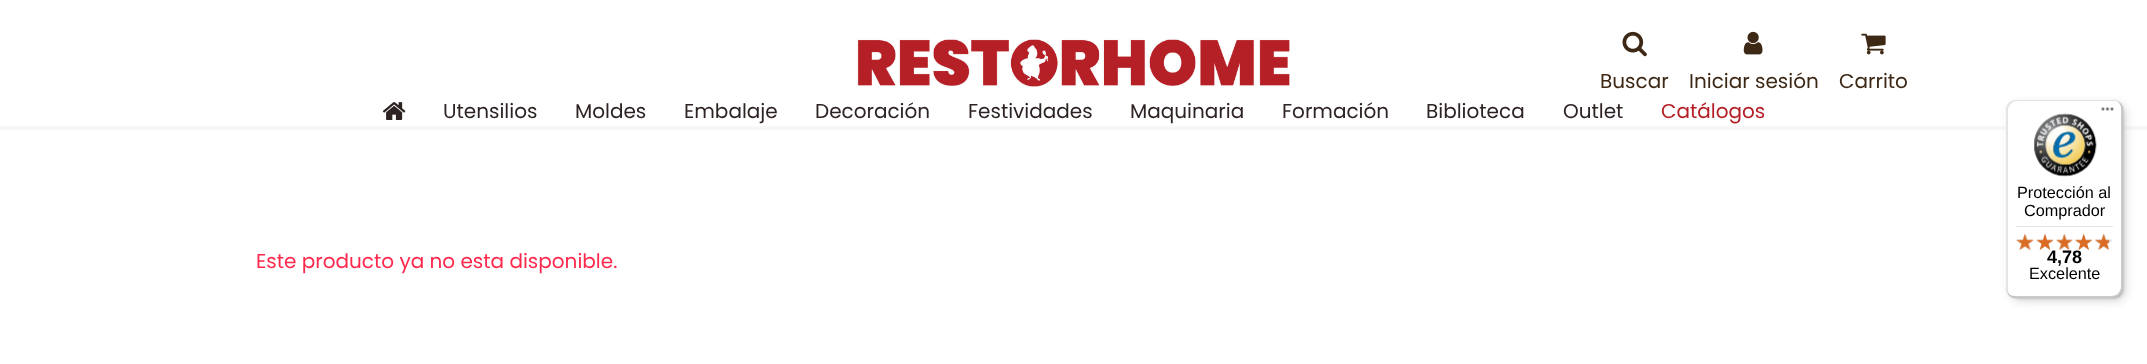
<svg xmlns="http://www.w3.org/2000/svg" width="2147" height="364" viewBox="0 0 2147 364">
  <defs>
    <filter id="blur1" x="-50%" y="-200%" width="200%" height="500%"><feGaussianBlur stdDeviation="5"/></filter>
    <filter id="blur2" x="-50%" y="-200%" width="200%" height="500%"><feGaussianBlur stdDeviation="1"/></filter>
  </defs>
  <rect width="100%" height="100%" fill="#ffffff"/>
  <rect x="0" y="126" width="2147" height="4" fill="#f8f8f8"/>
  <image x="856" y="38" width="434" height="50" href="img1.png"/>
  <image x="1622" y="31" width="25" height="26" href="img2.png"/>
  <text x="1600" y="88" font-family="Poppins" font-size="20" fill="#3d2815">Buscar</text>
  <image x="1743" y="31" width="20" height="24" href="img3.png"/>
  <text x="1689" y="88" font-family="Poppins" font-size="20" fill="#3d2815">Iniciar sesión</text>
  <image x="1861" y="33" width="25" height="22" href="img4.png"/>
  <text x="1839" y="88" font-family="Poppins" font-size="20" fill="#3d2815">Carrito</text>
  <image x="382" y="102" width="24" height="18" href="img5.png"/>
  <text x="443" y="118" font-family="Poppins" font-size="20" fill="#2e2323">Utensilios</text>
  <text x="575" y="118" font-family="Poppins" font-size="20" fill="#2e2323">Moldes</text>
  <text x="684" y="118" font-family="Poppins" font-size="20" fill="#2e2323">Embalaje</text>
  <text x="815" y="118" font-family="Poppins" font-size="20" fill="#2e2323">Decoración</text>
  <text x="968" y="118" font-family="Poppins" font-size="20" fill="#2e2323">Festividades</text>
  <text x="1130" y="118" font-family="Poppins" font-size="20" fill="#2e2323">Maquinaria</text>
  <text x="1282" y="118" font-family="Poppins" font-size="20" fill="#2e2323">Formación</text>
  <text x="1426" y="118" font-family="Poppins" font-size="20" fill="#2e2323">Biblioteca</text>
  <text x="1563" y="118" font-family="Poppins" font-size="20" fill="#2e2323">Outlet</text>
  <text x="1661" y="118" font-family="Poppins" font-size="20" fill="#b52027">Catálogos</text>
  <text x="256" y="268" font-family="Poppins" font-size="20" fill="#ff284d">Este producto ya no esta disponible.</text>
  <rect x="2010" y="104" width="116" height="197" rx="10" fill="#000000" fill-opacity="0.15" filter="url(#blur1)"/>
  <rect x="2008" y="101" width="116" height="198" rx="10" fill="#000000" fill-opacity="0.15" filter="url(#blur2)"/>
  <rect x="2006" y="100" width="117" height="198" rx="10" fill="#ffffff"/>
  <path d="M2018 101H2114C2117 101 2120 103 2122 105C2120 102 2117 100 2113 100H2016C2010 100 2006 104 2006 110V288C2006 292 2009 296 2013 297C2010 296 2008 292 2008 289V111C2008 106 2012 101 2018 101Z" fill="#000000" fill-opacity="0.1"/>
  <path d="M2007 292C2009 296 2012 298 2016 298H2113C2119 298 2123 294 2123 288V110C2123 106 2121 103 2117 101C2120 103 2121 106 2121 109V286C2121 292 2117 296 2111 296H2015C2012 296 2009 295 2007 292Z" fill="#000000" fill-opacity="0.2"/>
  <path d="M2006 287V288C2006 294 2010 298 2016 298H2113C2119 298 2123 294 2123 288V110C2123 106 2121 103 2118 101C2120 103 2122 106 2122 109V287C2122 292 2117 297 2112 297H2016C2010 297 2006 292 2006 287Z" fill="#323232" fill-opacity="0.2"/>
  <path d="M2006 287V288C2006 294 2010 298 2016 298H2113C2119 298 2123 294 2123 288V110C2123 106 2121 103 2118 101C2120 103 2122 106 2122 109V287C2122 292 2117 297 2112 297H2016C2010 297 2006 292 2006 287Z" fill="#ffffff" fill-opacity="0.3"/>
  <image x="2101" y="107" width="13" height="4" href="img6.png"/>
  <image x="2034" y="113" width="63" height="64" href="img7.png"/>
  <text x="2017" y="198" font-family="Liberation Sans" font-size="16.25" fill="#000000">Protección al</text>
  <text x="2024" y="216" font-family="Liberation Sans" font-size="16.25" fill="#000000">Comprador</text>
  <rect x="2016" y="226" width="97" height="1" fill="#e5e5e5"/>
  <image x="2016" y="234" width="17" height="16" href="img8.png"/>
  <image x="2037" y="234" width="16" height="16" href="img9.png"/>
  <image x="2056" y="234" width="17" height="16" href="img10.png"/>
  <image x="2075" y="233" width="17" height="17" href="img11.png"/>
  <image x="2095" y="234" width="18" height="16" href="img12.png"/>
  <image x="2016" y="233" width="18" height="17" href="img13.png"/>
  <image x="2036" y="233" width="18" height="17" href="img14.png"/>
  <image x="2056" y="233" width="17" height="17" href="img15.png"/>
  <image x="2075" y="233" width="17" height="17" href="img16.png"/>
  <image x="2095" y="233" width="14" height="17" href="img17.png"/>
  <text x="2047" y="263" font-family="Liberation Sans" font-size="18" font-weight="bold" fill="#000000">4,78</text>
  <text x="2029" y="279" font-family="Liberation Sans" font-size="16.25" fill="#000000">Excelente</text>
</svg>
